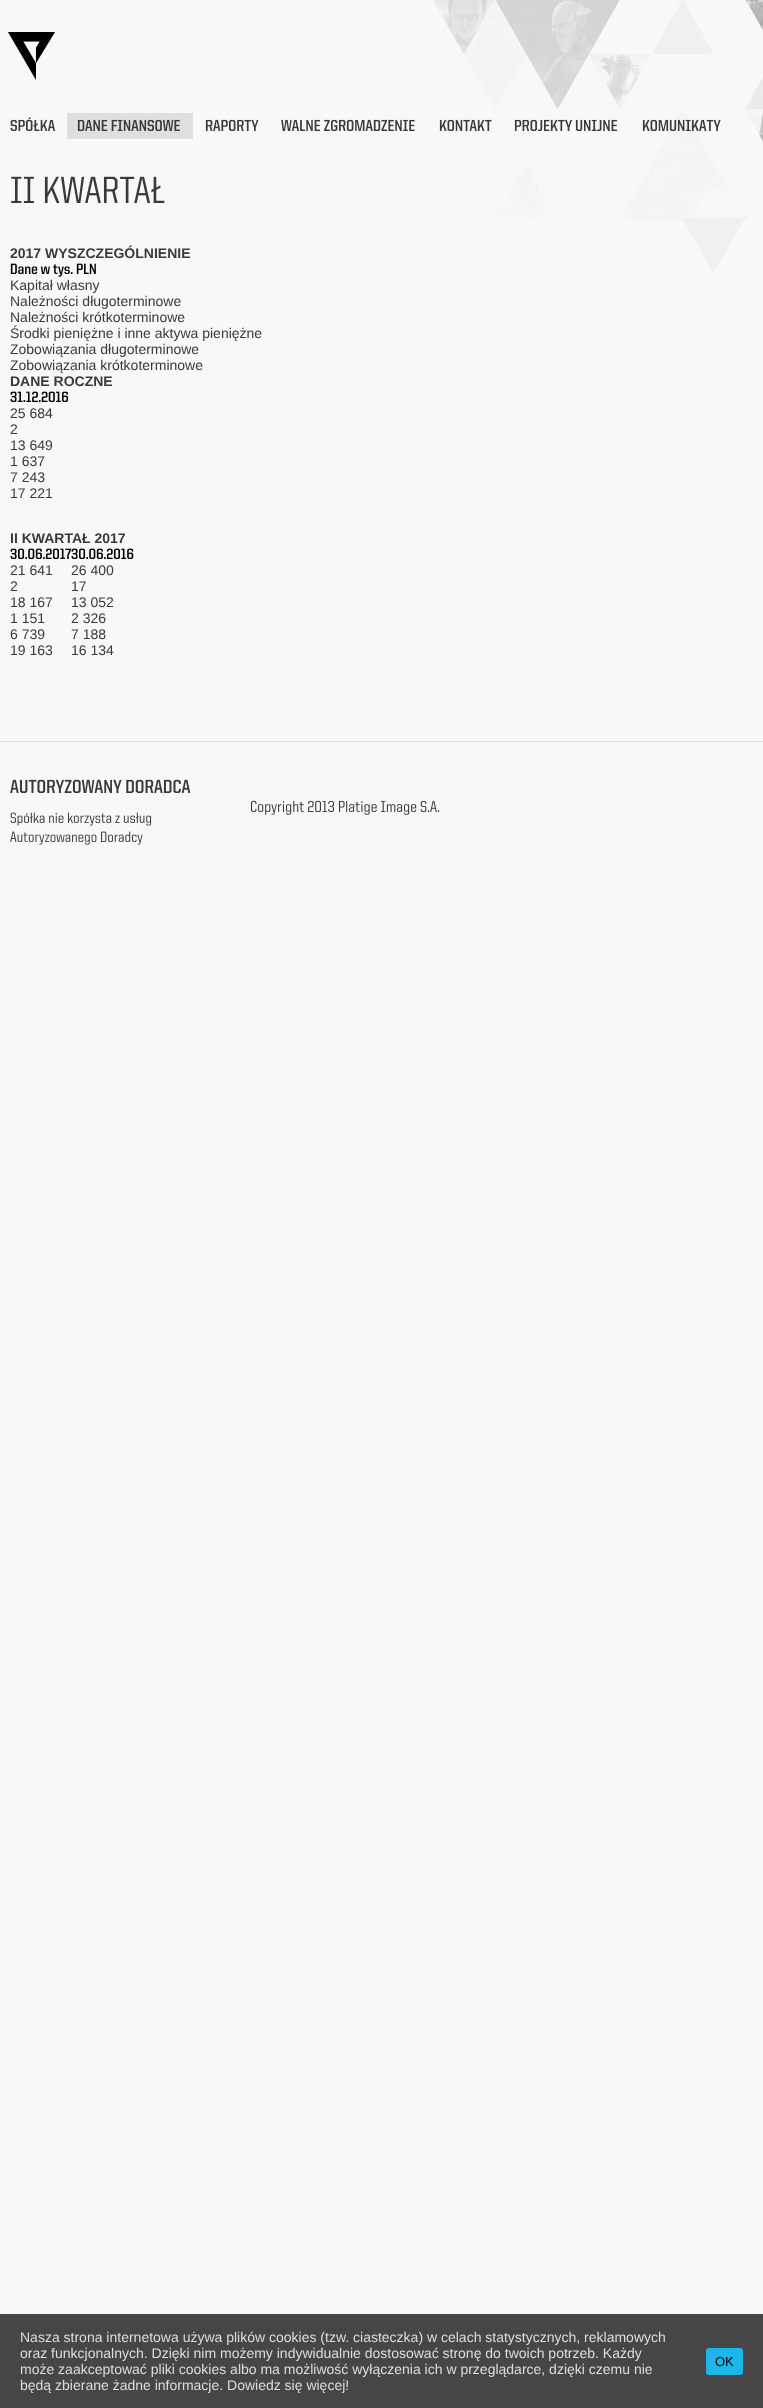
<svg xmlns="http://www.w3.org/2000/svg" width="763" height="2408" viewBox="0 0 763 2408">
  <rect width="100%" height="100%" fill="#f8f8f8"/>
  <image x="433" y="0" width="330" height="273" href="img1.png"/>
  <image x="8" y="32" width="47" height="48" href="img2.png"/>
  <image x="10" y="117" width="45" height="14" href="img3.png"/>
  <rect x="67" y="113" width="126" height="26" fill="#dfdfdf"/>
  <image x="77" y="119" width="103" height="12" href="img4.png"/>
  <image x="205" y="119" width="54" height="12" href="img5.png"/>
  <image x="281" y="119" width="134" height="12" href="img6.png"/>
  <image x="439" y="119" width="53" height="12" href="img7.png"/>
  <image x="514" y="119" width="103" height="12" href="img8.png"/>
  <image x="642" y="119" width="79" height="12" href="img9.png"/>
  <image x="11" y="176" width="154" height="27" href="img10.png"/>
  <text x="10" y="258" font-family="Liberation Sans" font-size="14" font-weight="bold" fill="#393939">2017 WYSZCZEGÓLNIENIE</text>
  <image x="10" y="263" width="86" height="14" href="img11.png"/>
  <text x="10" y="290" font-family="Liberation Sans" font-size="14" fill="#393939">Kapitał własny</text>
  <text x="10" y="306" font-family="Liberation Sans" font-size="14" fill="#393939">Należności długoterminowe</text>
  <text x="10" y="322" font-family="Liberation Sans" font-size="14" fill="#393939">Należności krótkoterminowe</text>
  <text x="10" y="338" font-family="Liberation Sans" font-size="14" fill="#393939">Środki pieniężne i inne aktywa pieniężne</text>
  <text x="10" y="354" font-family="Liberation Sans" font-size="14" fill="#393939">Zobowiązania długoterminowe</text>
  <text x="10" y="370" font-family="Liberation Sans" font-size="14" fill="#393939">Zobowiązania krótkoterminowe</text>
  <text x="10" y="386" font-family="Liberation Sans" font-size="14" font-weight="bold" fill="#393939">DANE ROCZNE</text>
  <image x="10" y="391" width="59" height="11" href="img12.png"/>
  <text x="10" y="418" font-family="Liberation Sans" font-size="14" fill="#393939">25 684</text>
  <text x="10" y="434" font-family="Liberation Sans" font-size="14" fill="#393939">2</text>
  <text x="10" y="450" font-family="Liberation Sans" font-size="14" fill="#393939">13 649</text>
  <text x="10" y="466" font-family="Liberation Sans" font-size="14" fill="#393939">1 637</text>
  <text x="10" y="482" font-family="Liberation Sans" font-size="14" fill="#393939">7 243</text>
  <text x="10" y="498" font-family="Liberation Sans" font-size="14" fill="#393939">17 221</text>
  <text x="10" y="543" font-family="Liberation Sans" font-size="14" font-weight="bold" fill="#393939">II KWARTAŁ 2017</text>
  <image x="10" y="548" width="62" height="11" href="img13.png"/>
  <image x="71" y="548" width="63" height="11" href="img14.png"/>
  <text x="10" y="575" font-family="Liberation Sans" font-size="14" fill="#393939">21 641</text>
  <text x="71" y="575" font-family="Liberation Sans" font-size="14" fill="#393939">26 400</text>
  <text x="10" y="591" font-family="Liberation Sans" font-size="14" fill="#393939">2</text>
  <text x="71" y="591" font-family="Liberation Sans" font-size="14" fill="#393939">17</text>
  <text x="10" y="607" font-family="Liberation Sans" font-size="14" fill="#393939">18 167</text>
  <text x="71" y="607" font-family="Liberation Sans" font-size="14" fill="#393939">13 052</text>
  <text x="10" y="623" font-family="Liberation Sans" font-size="14" fill="#393939">1 151</text>
  <text x="71" y="623" font-family="Liberation Sans" font-size="14" fill="#393939">2 326</text>
  <text x="10" y="639" font-family="Liberation Sans" font-size="14" fill="#393939">6 739</text>
  <text x="71" y="639" font-family="Liberation Sans" font-size="14" fill="#393939">7 188</text>
  <text x="10" y="655" font-family="Liberation Sans" font-size="14" fill="#393939">19 163</text>
  <text x="71" y="655" font-family="Liberation Sans" font-size="14" fill="#393939">16 134</text>
  <rect x="0" y="741" width="763" height="1" fill="#dedede"/>
  <image x="10" y="779" width="181" height="14" href="img15.png"/>
  <image x="10" y="812" width="142" height="14" href="img16.png"/>
  <image x="10" y="831" width="133" height="14" href="img17.png"/>
  <image x="250" y="800" width="190" height="15" href="img18.png"/>
  <rect x="0" y="2314" width="763" height="94" fill="#464646"/>
  <text x="20" y="2342" font-family="Liberation Sans" font-size="14" fill="#dddddd">Nasza strona internetowa używa plików cookies (tzw. ciasteczka) w celach statystycznych, reklamowych</text>
  <text x="20" y="2358" font-family="Liberation Sans" font-size="14" fill="#dddddd">oraz funkcjonalnych. Dzięki nim możemy indywidualnie dostosować stronę do twoich potrzeb. Każdy</text>
  <text x="20" y="2374" font-family="Liberation Sans" font-size="14" fill="#dddddd">może zaakceptować pliki cookies albo ma możliwość wyłączenia ich w przeglądarce, dzięki czemu nie</text>
  <text x="20" y="2390" font-family="Liberation Sans" font-size="14" fill="#dddddd">będą zbierane żadne informacje. Dowiedz się więcej!</text>
  <rect x="706" y="2348" width="37" height="27" rx="3" fill="#1eb5ec"/>
  <text x="715" y="2366" font-family="Liberation Sans" font-size="13" fill="#000000">OK</text>
</svg>
